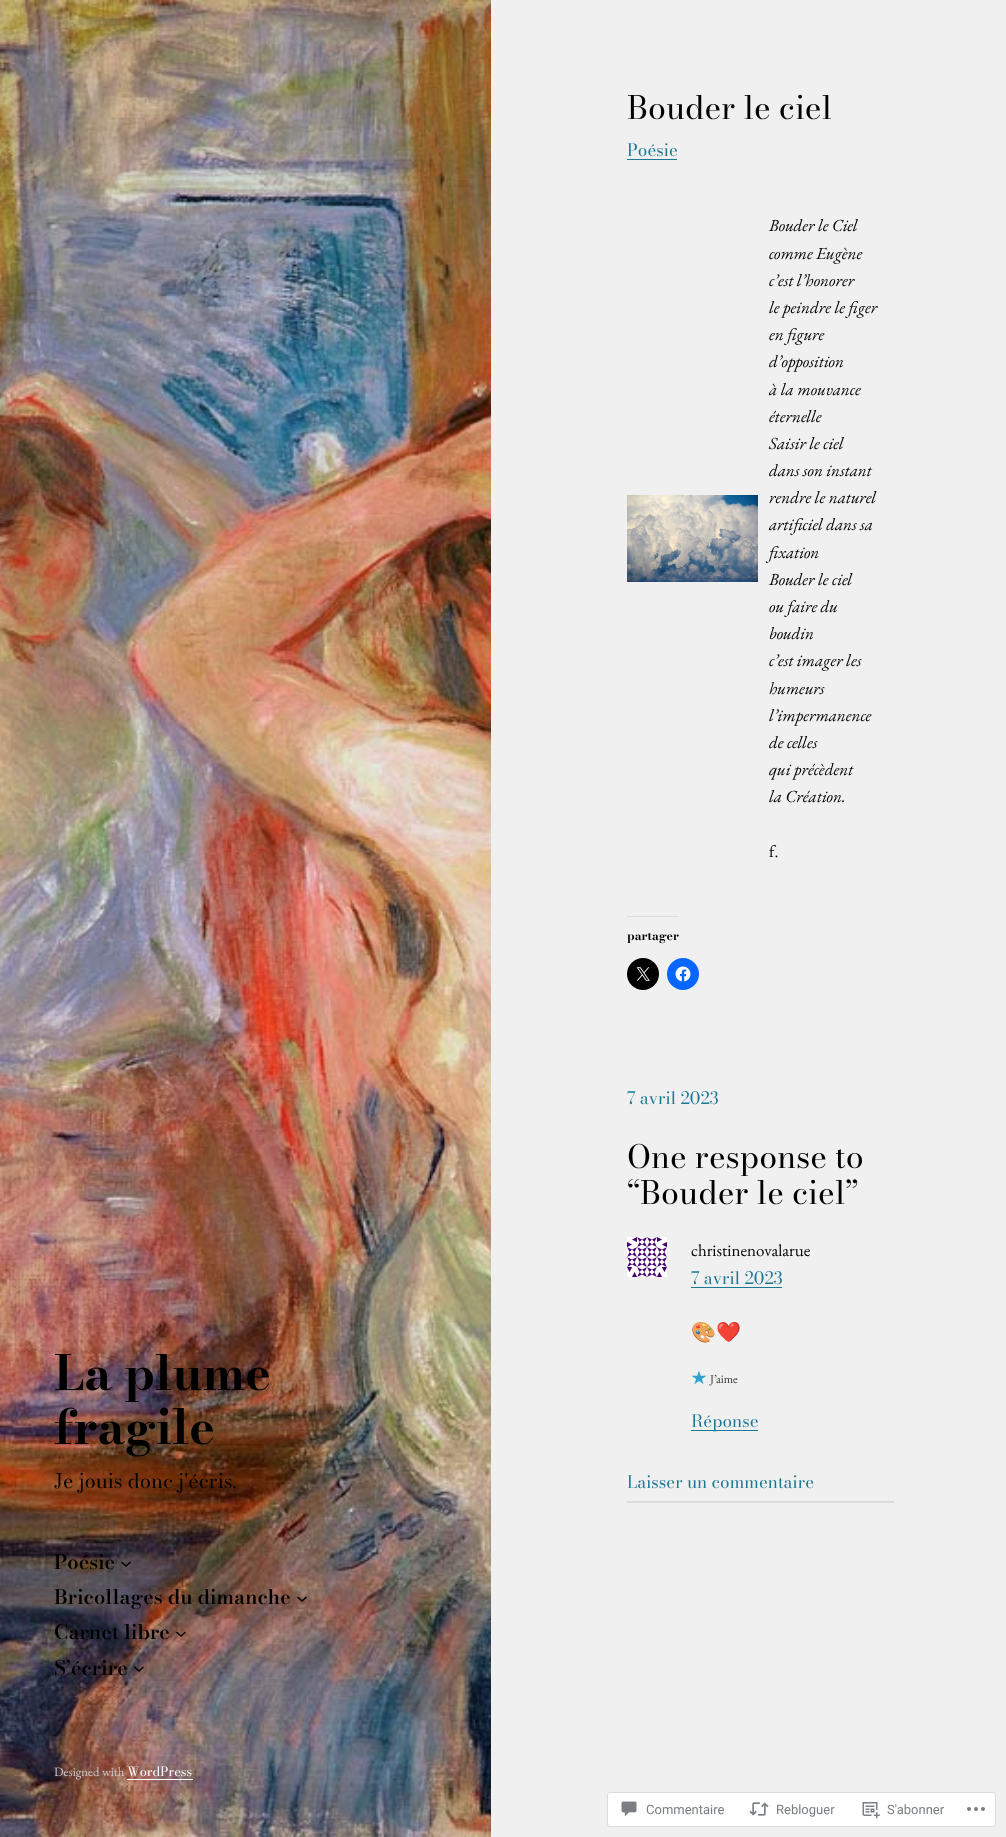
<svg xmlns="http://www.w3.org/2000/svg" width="1006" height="1837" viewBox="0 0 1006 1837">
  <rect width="100%" height="100%" fill="#f0f0f0"/>
  <text x="627" y="119" font-family="Bodoni Moda" font-size="32" fill="#000000">Bouder le ciel</text>
  <text x="627" y="156" font-family="Bodoni Moda" font-size="17" fill="#1a7895">Poésie</text>
  <rect x="627" y="159" width="50" height="1" fill="#1a7895"/>
  <image x="627" y="495" width="131" height="87" href="img1.png"/>
  <text x="769" y="231" font-family="EB Garamond" font-size="17" font-style="italic" fill="#000000">Bouder le Ciel</text>
  <text x="769" y="259" font-family="EB Garamond" font-size="17" font-style="italic" fill="#000000">comme Eugène</text>
  <text x="769" y="286" font-family="EB Garamond" font-size="17" font-style="italic" fill="#000000">c’est l’honorer</text>
  <text x="769" y="313" font-family="EB Garamond" font-size="17" font-style="italic" fill="#000000">le peindre le figer</text>
  <text x="769" y="340" font-family="EB Garamond" font-size="17" font-style="italic" fill="#000000">en figure</text>
  <text x="769" y="367" font-family="EB Garamond" font-size="17" font-style="italic" fill="#000000">d’opposition</text>
  <text x="769" y="395" font-family="EB Garamond" font-size="17" font-style="italic" fill="#000000">à la mouvance</text>
  <text x="769" y="422" font-family="EB Garamond" font-size="17" font-style="italic" fill="#000000">éternelle</text>
  <text x="769" y="449" font-family="EB Garamond" font-size="17" font-style="italic" fill="#000000">Saisir le ciel</text>
  <text x="769" y="476" font-family="EB Garamond" font-size="17" font-style="italic" fill="#000000">dans son instant</text>
  <text x="769" y="503" font-family="EB Garamond" font-size="17" font-style="italic" fill="#000000">rendre le naturel</text>
  <text x="769" y="530" font-family="EB Garamond" font-size="17" font-style="italic" fill="#000000">artificiel dans sa</text>
  <text x="769" y="558" font-family="EB Garamond" font-size="17" font-style="italic" fill="#000000">fixation</text>
  <text x="769" y="585" font-family="EB Garamond" font-size="17" font-style="italic" fill="#000000">Bouder le ciel</text>
  <text x="769" y="612" font-family="EB Garamond" font-size="17" font-style="italic" fill="#000000">ou faire du</text>
  <text x="769" y="639" font-family="EB Garamond" font-size="17" font-style="italic" fill="#000000">boudin</text>
  <text x="769" y="666" font-family="EB Garamond" font-size="17" font-style="italic" fill="#000000">c’est imager les</text>
  <text x="769" y="694" font-family="EB Garamond" font-size="17" font-style="italic" fill="#000000">humeurs</text>
  <text x="769" y="721" font-family="EB Garamond" font-size="17" font-style="italic" fill="#000000">l’impermanence</text>
  <text x="769" y="748" font-family="EB Garamond" font-size="17" font-style="italic" fill="#000000">de celles</text>
  <text x="769" y="775" font-family="EB Garamond" font-size="17" font-style="italic" fill="#000000">qui précèdent</text>
  <text x="769" y="802" font-family="EB Garamond" font-size="17" font-style="italic" fill="#000000">la Création.</text>
  <text x="769" y="857" font-family="EB Garamond" font-size="17" fill="#000000">f.</text>
  <rect x="627" y="916" width="52" height="1" fill="#dcdcde"/>
  <text x="627" y="940" font-family="Bodoni Moda" font-size="12" font-weight="bold" fill="#000000">partager</text>
  <circle cx="643" cy="974" r="16" fill="#000000"/>
  <image x="636" y="967" width="14" height="14" href="img2.png"/>
  <circle cx="683" cy="974" r="16" fill="#0866ff"/>
  <image x="675" y="966" width="16" height="16" href="img3.png"/>
  <text x="627" y="1104" font-family="Bodoni Moda" font-size="17" fill="#1a7895">7 avril 2023</text>
  <text x="627" y="1168" font-family="Bodoni Moda" font-size="32" fill="#000000">One response to</text>
  <text x="627" y="1204" font-family="Bodoni Moda" font-size="32" fill="#000000">“Bouder le ciel”</text>
  <image x="627" y="1237" width="40" height="40" href="img4.png"/>
  <text x="691" y="1256" font-family="EB Garamond" font-size="17" fill="#000000">christinenovalarue</text>
  <text x="691" y="1284" font-family="Bodoni Moda" font-size="17" fill="#1a7895">7 avril 2023</text>
  <rect x="691" y="1287" width="91" height="1" fill="#1a7895"/>
  <text x="691" y="1339" font-family="Noto Color Emoji" font-size="20" fill="#000000">🎨❤️</text>
  <image x="691" y="1370" width="16" height="15" href="img5.png"/>
  <text x="710" y="1383" font-family="EB Garamond" font-size="12" fill="#303030">J’aime</text>
  <rect x="691" y="1430" width="67" height="1" fill="#1a7895"/>
  <text x="691" y="1427" font-family="Bodoni Moda" font-size="17" fill="#1a7895">Réponse</text>
  <text x="627" y="1488" font-family="Bodoni Moda" font-size="17" fill="#1a7895">Laisser un commentaire</text>
  <rect x="627" y="1501" width="267" height="2" fill="#dcdcde"/>
  <image x="0" y="0" width="491" height="1837" href="img6.png"/>
  <text x="54" y="1390" font-family="Bodoni Moda" font-size="48" font-weight="bold" fill="#000000">La plume</text>
  <text x="54" y="1444" font-family="Bodoni Moda" font-size="48" font-weight="bold" fill="#000000">fragile</text>
  <text x="54" y="1488" font-family="Bodoni Moda" font-size="20" fill="#000000">Je jouis donc j'écris.</text>
  <text x="54" y="1569" font-family="Bodoni Moda" font-size="20" font-weight="600" fill="#000000">Poésie</text>
  <path d="M121.5 1562L126 1566L130.5 1562" fill="none" stroke="#000000" stroke-width="1.5"/>
  <text x="54" y="1604" font-family="Bodoni Moda" font-size="20" font-weight="600" fill="#000000">Bricollages du dimanche</text>
  <path d="M297.5 1597L302 1601L306.5 1597" fill="none" stroke="#000000" stroke-width="1.5"/>
  <path d="M176.5 1632L181 1636L185.5 1632M134.5 1667L139 1671L143.5 1667" fill="none" stroke="#000000" stroke-width="1.5"/>
  <text x="54" y="1639" font-family="Bodoni Moda" font-size="20" font-weight="600" fill="#000000">Carnet libre</text>
  <text x="54" y="1675" font-family="Bodoni Moda" font-size="20" font-weight="600" fill="#000000">S’écrire</text>
  <text x="54" y="1776" font-family="EB Garamond" font-size="12.75" fill="#cbcbcb">Designed with</text>
  <text x="127" y="1776" font-family="Bodoni Moda" font-size="12.75" fill="#ffffff">WordPress</text>
  <rect x="127" y="1779" width="66" height="1" fill="#ffffff"/>
  <rect x="607.5" y="1792.5" width="388" height="34" rx="2.5" fill="#ffffff" stroke="#dcdcde"/>
  <image x="621" y="1801" width="16" height="16" href="img7.png"/>
  <text x="646" y="1814" font-family="Roboto" font-size="13" fill="#7a7e84">Commentaire</text>
  <image x="749" y="1802" width="20" height="14" href="img8.png"/>
  <text x="776" y="1814" font-family="Roboto" font-size="13" fill="#7a7e84">Rebloguer</text>
  <image x="862" y="1802" width="18" height="17" href="img9.png"/>
  <text x="887" y="1814" font-family="Roboto" font-size="13" fill="#7a7e84">S'abonner</text>
  <image x="967" y="1807" width="18" height="4" href="img10.png"/>
</svg>
